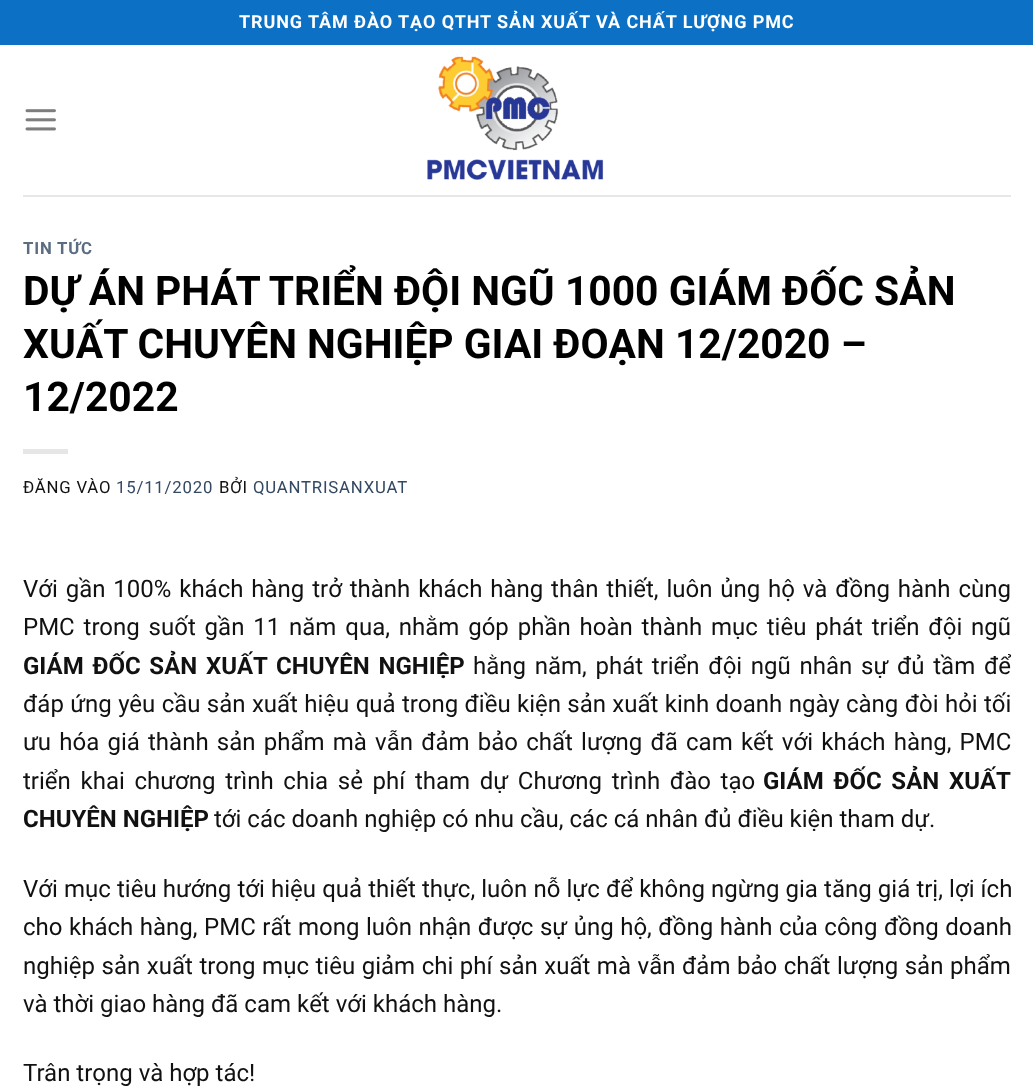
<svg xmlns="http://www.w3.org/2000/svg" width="1033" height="1087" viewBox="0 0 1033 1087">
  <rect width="100%" height="100%" fill="#ffffff"/>
  <rect x="0" y="0" width="1033" height="45" fill="#0c71c5"/>
  <text x="239" y="28" font-family="Roboto" font-size="18" font-weight="bold" letter-spacing="0.9" fill="#ffffff">TRUNG TÂM ĐÀO TẠO QTHT SẢN XUẤT VÀ CHẤT LƯỢNG PMC</text>
  <image x="25" y="109" width="31" height="22" href="img1.png"/>
  <image x="427" y="56" width="177" height="124" href="img2.png"/>
  <rect x="23" y="195" width="988" height="2" fill="#e7e7e7"/>
  <text x="23" y="254" font-family="Roboto" font-size="16.75" font-weight="bold" letter-spacing="0.8" fill="#5c6d81">TIN TỨC</text>
  <text x="23" y="305" font-family="Roboto" font-size="40.8" font-weight="bold" fill="#000000">DỰ ÁN PHÁT TRIỂN ĐỘI NGŨ 1000 GIÁM ĐỐC SẢN</text>
  <text x="23" y="358" font-family="Roboto" font-size="40.8" font-weight="bold" fill="#000000">XUẤT CHUYÊN NGHIỆP GIAI ĐOẠN 12/2020 –</text>
  <text x="23" y="411" font-family="Roboto" font-size="40.8" font-weight="bold" fill="#000000">12/2022</text>
  <rect x="23" y="449" width="45" height="5" fill="#e6e6e6"/>
  <text x="23" y="493" font-family="Roboto" font-size="16.75" letter-spacing="0.8" fill="#111111">ĐĂNG VÀO</text>
  <text x="116" y="493" font-family="Roboto" font-size="16.75" letter-spacing="0.8" fill="#334862">15/11/2020</text>
  <text x="219" y="493" font-family="Roboto" font-size="16.75" letter-spacing="0.8" fill="#111111">BỞI</text>
  <text x="253" y="493" font-family="Roboto" font-size="16.75" letter-spacing="0.8" fill="#334862">QUANTRISANXUAT</text>
  <text x="23" y="597" word-spacing="1.9" font-family="Roboto" font-size="24" fill="#111111">Với gần 100% khách hàng trở thành khách hàng thân thiết, luôn ủng hộ và đồng hành cùng</text>
  <text x="23" y="635" word-spacing="2.9" font-family="Roboto" font-size="24" fill="#111111">PMC trong suốt gần 11 năm qua, nhằm góp phần hoàn thành mục tiêu phát triển đội ngũ</text>
  <text x="23" y="674" word-spacing="2.75" font-family="Roboto" font-size="24" font-weight="bold" fill="#111111">GIÁM ĐỐC SẢN XUẤT CHUYÊN NGHIỆP</text>
  <text x="473" y="674" word-spacing="2.75" font-family="Roboto" font-size="24" fill="#111111">hằng năm, phát triển đội ngũ nhân sự đủ tầm để</text>
  <text x="23" y="712" word-spacing="0.4" font-family="Roboto" font-size="24" fill="#111111">đáp ứng yêu cầu sản xuất hiệu quả trong điều kiện sản xuất kinh doanh ngày càng đòi hỏi tối</text>
  <text x="23" y="750" word-spacing="2.25" font-family="Roboto" font-size="24" fill="#111111">ưu hóa giá thành sản phẩm mà vẫn đảm bảo chất lượng đã cam kết với khách hàng, PMC</text>
  <text x="23" y="789" word-spacing="3.75" font-family="Roboto" font-size="24" fill="#111111">triển khai chương trình chia sẻ phí tham dự Chương trình đào tạo</text>
  <text x="763" y="789" word-spacing="3.75" font-family="Roboto" font-size="24" font-weight="bold" fill="#111111">GIÁM ĐỐC SẢN XUẤT</text>
  <text x="23" y="827" font-family="Roboto" font-size="24" font-weight="bold" fill="#111111">CHUYÊN NGHIỆP</text>
  <text x="214" y="827" font-family="Roboto" font-size="24" fill="#111111">tới các doanh nghiệp có nhu cầu, các cá nhân đủ điều kiện tham dự.</text>
  <text x="23" y="897" word-spacing="0.2" font-family="Roboto" font-size="24" fill="#111111">Với mục tiêu hướng tới hiệu quả thiết thực, luôn nỗ lực để không ngừng gia tăng giá trị, lợi ích</text>
  <text x="23" y="935" word-spacing="0.6" font-family="Roboto" font-size="24" fill="#111111">cho khách hàng, PMC rất mong luôn nhận được sự ủng hộ, đồng hành của công đồng doanh</text>
  <text x="23" y="974" word-spacing="0.6" font-family="Roboto" font-size="24" fill="#111111">nghiệp sản xuất trong mục tiêu giảm chi phí sản xuất mà vẫn đảm bảo chất lượng sản phẩm</text>
  <text x="23" y="1012" font-family="Roboto" font-size="24" fill="#111111">và thời giao hàng đã cam kết với khách hàng.</text>
  <text x="23" y="1081" font-family="Roboto" font-size="24" fill="#111111">Trân trọng và hợp tác!</text>
</svg>
